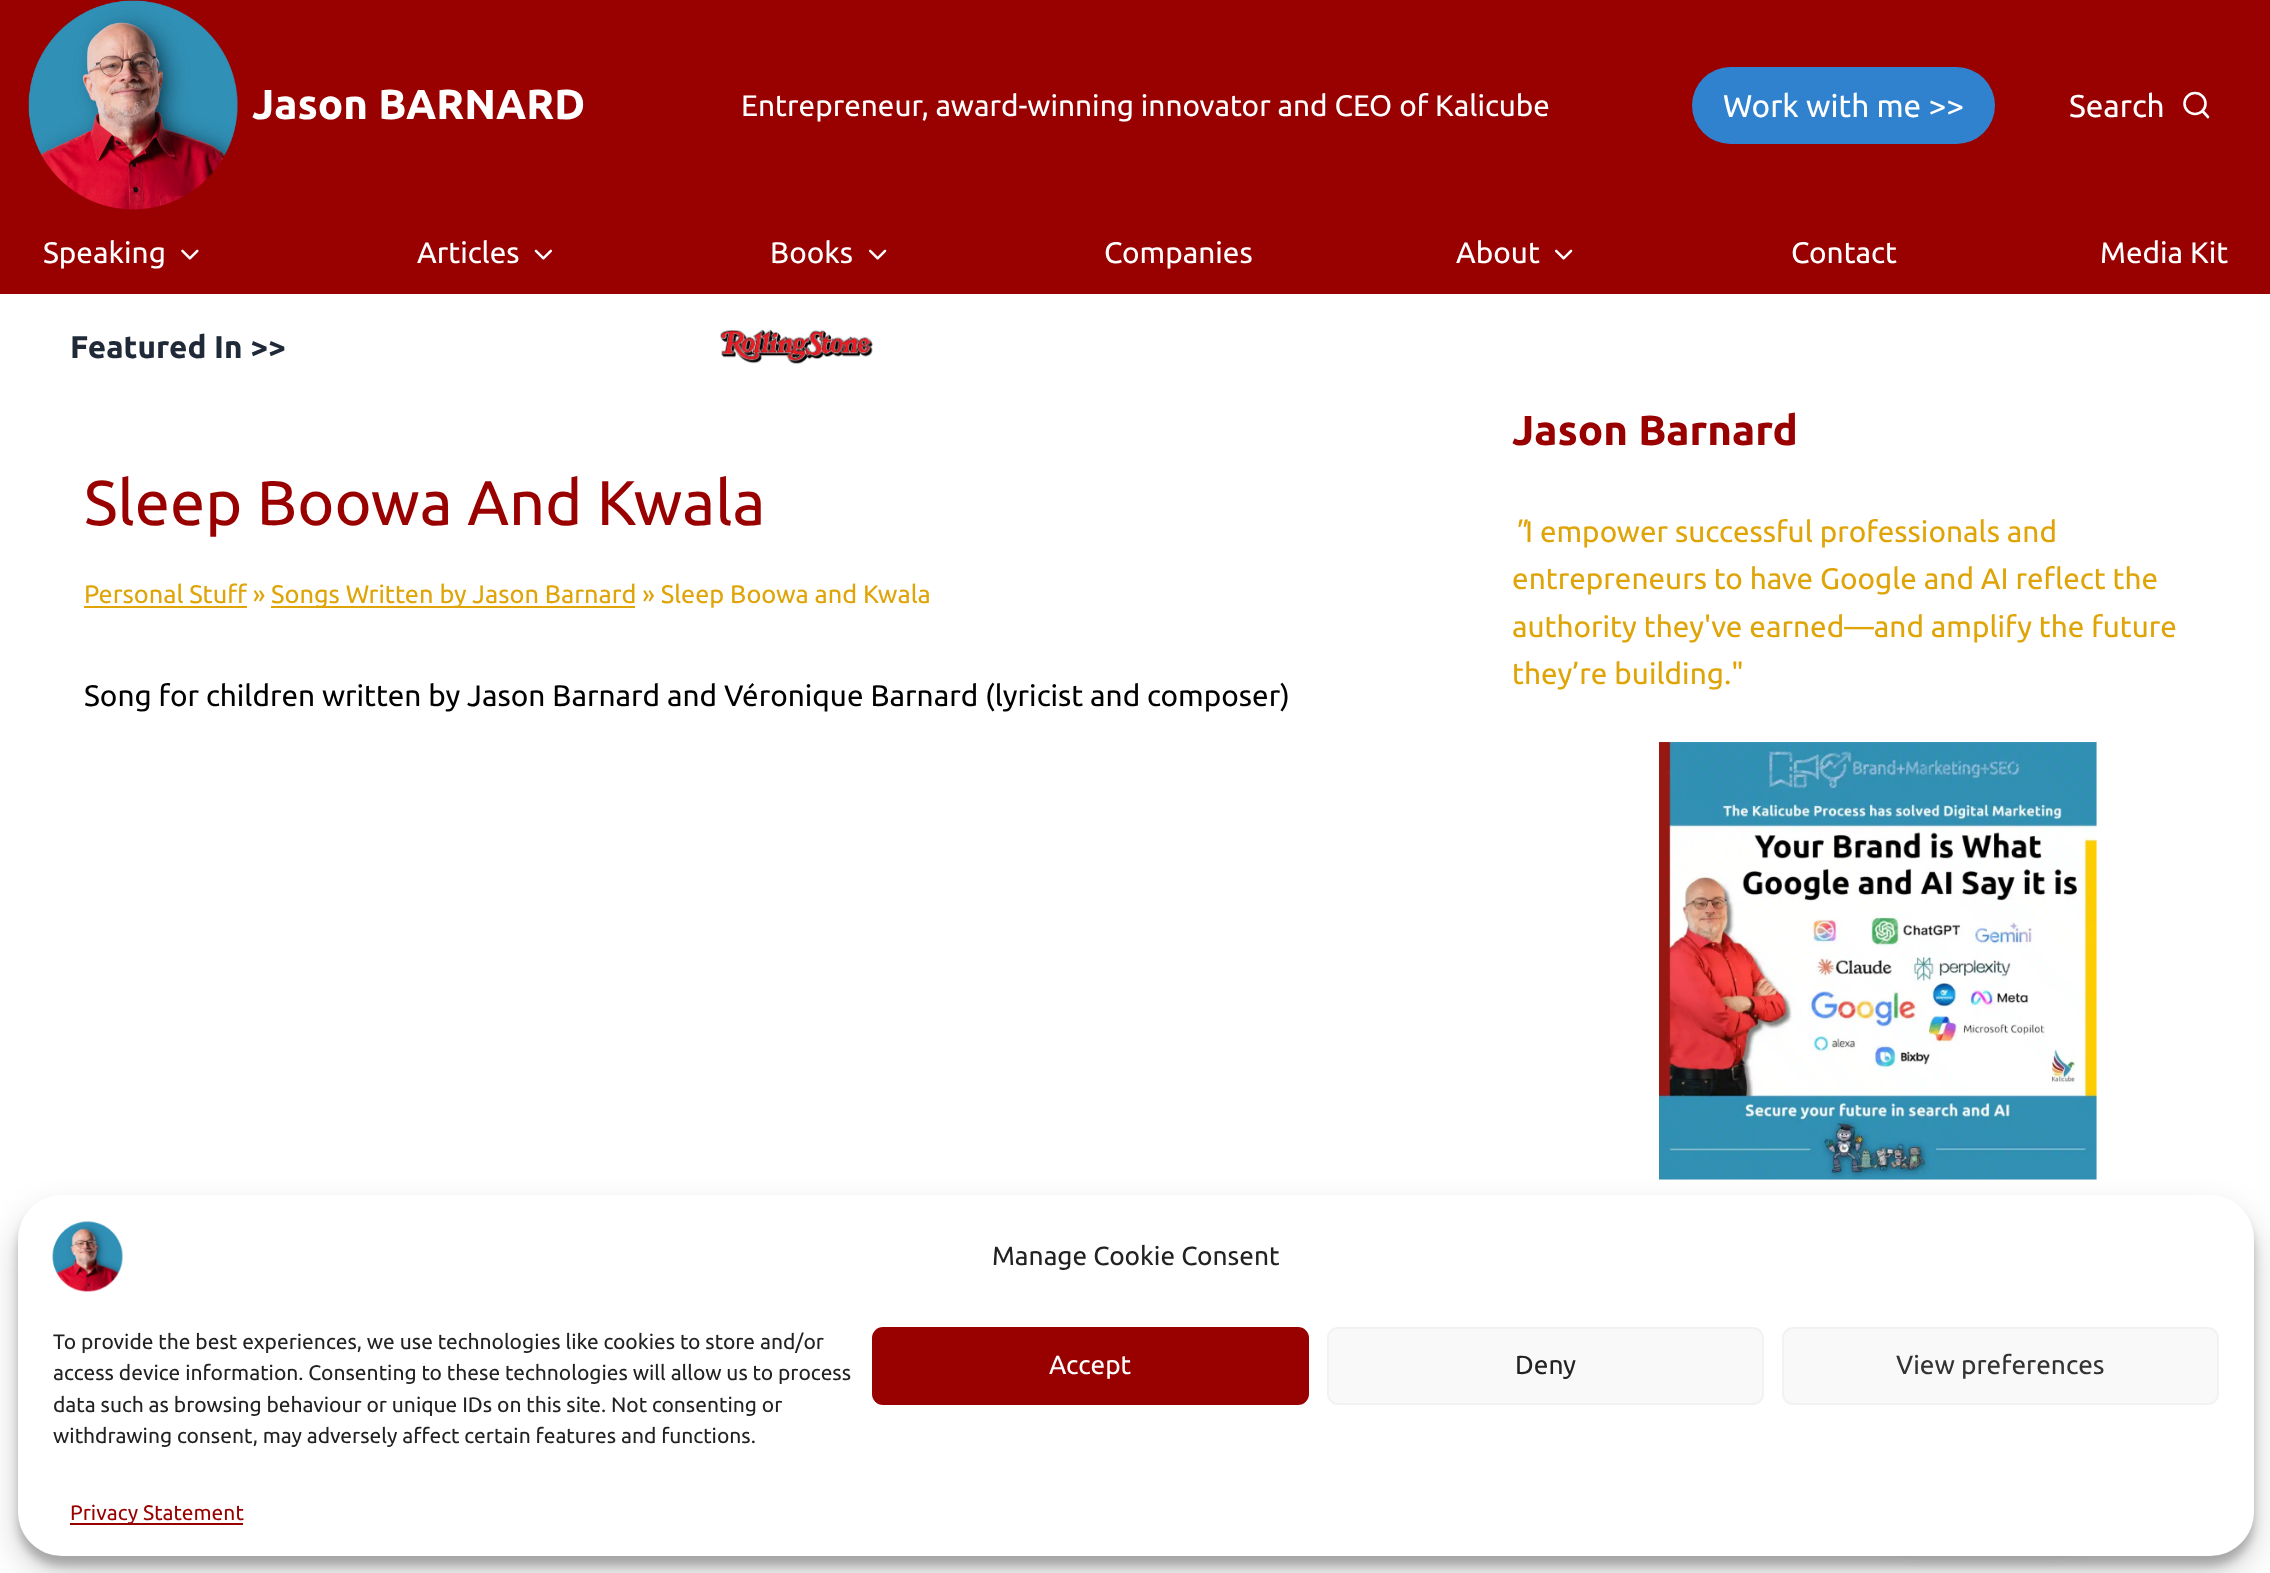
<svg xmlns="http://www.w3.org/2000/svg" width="2270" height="1573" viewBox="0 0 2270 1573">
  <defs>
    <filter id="blur1" x="-50%" y="-200%" width="200%" height="500%"><feGaussianBlur stdDeviation="5"/></filter>
    <filter id="blur2" x="-50%" y="-200%" width="200%" height="500%"><feGaussianBlur stdDeviation="17.5"/></filter>
    <filter id="blur3" x="-50%" y="-200%" width="200%" height="500%"><feGaussianBlur stdDeviation="10.5"/></filter>
  </defs>
  <rect width="100%" height="100%" fill="#ffffff"/>
  <rect x="0" y="0" width="2270" height="294" fill="#990000"/>
  <image x="28" y="0" width="210" height="210" href="img1.png"/>
  <text x="252" y="119" font-family="Ubuntu" font-size="42" font-weight="bold" fill="#ffffff">Jason BARNARD</text>
  <text x="741" y="116" font-family="Ubuntu" font-size="29.75" fill="#ffffff">Entrepreneur, award-winning innovator and CEO of Kalicube</text>
  <rect x="1692" y="67" width="303" height="77" rx="38.5" fill="#3182ce"/>
  <text x="1723" y="117" font-family="Ubuntu" font-size="31.5" fill="#ffffff">Work with me &gt;&gt;</text>
  <text x="2069" y="117" font-family="Ubuntu" font-size="31.5" fill="#ffffff">Search</text>
  <circle cx="2195" cy="103.5" r="10.5" fill="none" stroke="#ffffff" stroke-width="2.6"/>
  <path d="M2208 117L2202.5 111" fill="none" stroke="#ffffff" stroke-width="2.6" stroke-linecap="round" stroke-linejoin="round"/>
  <text x="43" y="263" font-family="Ubuntu" font-size="29.75" fill="#ffffff">Speaking</text>
  <image x="181" y="249" width="18" height="11" href="img2.png"/>
  <text x="417" y="263" font-family="Ubuntu" font-size="29.75" fill="#ffffff">Articles</text>
  <image x="534" y="249" width="18" height="11" href="img3.png"/>
  <text x="770" y="263" font-family="Ubuntu" font-size="29.75" fill="#ffffff">Books</text>
  <image x="869" y="249" width="18" height="11" href="img4.png"/>
  <text x="1104" y="263" font-family="Ubuntu" font-size="29.75" fill="#ffffff">Companies</text>
  <text x="1456" y="263" font-family="Ubuntu" font-size="29.75" fill="#ffffff">About</text>
  <image x="1555" y="249" width="18" height="11" href="img4.png"/>
  <text x="1791" y="263" font-family="Ubuntu" font-size="29.75" fill="#ffffff">Contact</text>
  <text x="2100" y="263" font-family="Ubuntu" font-size="29.75" fill="#ffffff">Media Kit</text>
  <text x="70" y="358" font-family="Ubuntu" font-size="31.5" font-weight="bold" fill="#1f2937">Featured In &gt;&gt;</text>
  <image x="720" y="329" width="153" height="35" href="img5.png"/>
  <text x="84" y="525" font-family="Ubuntu" font-size="63" fill="#990000">Sleep Boowa And Kwala</text>
  <text x="84" y="603" font-family="Ubuntu" font-size="25.3" fill="#dfa408">Personal Stuff »</text>
  <rect x="84" y="606" width="163" height="2" fill="#dfa408"/>
  <rect x="271" y="606" width="364" height="2" fill="#dfa408"/>
  <text x="271" y="603" font-family="Ubuntu" font-size="25.3" fill="#dfa408">Songs Written by Jason Barnard » Sleep Boowa and Kwala</text>
  <text x="84" y="706" font-family="Ubuntu" font-size="29.75" fill="#000000">Song for children written by Jason Barnard and Véronique Barnard (lyricist and composer)</text>
  <text x="1512" y="445" font-family="Ubuntu" font-size="42" font-weight="bold" fill="#990000">Jason Barnard</text>
  <text x="1512" y="542" font-family="Ubuntu" font-size="29.75" font-style="italic" fill="#dfa408">"</text>
  <text x="1525" y="542" font-family="Ubuntu" font-size="29.75" fill="#dfa408">I empower successful professionals and</text>
  <text x="1512" y="589" font-family="Ubuntu" font-size="29.75" fill="#dfa408">entrepreneurs to have Google and AI reflect the</text>
  <text x="1512" y="637" font-family="Ubuntu" font-size="29.75" fill="#dfa408">authority they've earned—and amplify the future</text>
  <text x="1512" y="684" font-family="Ubuntu" font-size="29.75" fill="#dfa408">they’re building."</text>
  <image x="1659" y="742" width="438" height="438" href="img6.png"/>
  <rect x="18" y="1206" width="2236" height="360" rx="44" fill="#000000" fill-opacity="0.23" filter="url(#blur1)"/>
  <rect x="18" y="1213" width="2236" height="360" rx="44" fill="#000000" fill-opacity="0.19" filter="url(#blur2)"/>
  <rect x="1871" y="1465" width="226" height="80" rx="40" fill="#000000" fill-opacity="0.15" filter="url(#blur3)"/>
  <rect x="18" y="1195" width="2236" height="361" rx="44" fill="#ffffff"/>
  <image x="52" y="1221" width="71" height="71" href="img7.png"/>
  <text x="992" y="1265" font-family="Ubuntu" font-size="26.25" fill="#222222">Manage Cookie Consent</text>
  <text x="53" y="1349" font-family="Ubuntu" font-size="21" fill="#222222">To provide the best experiences, we use technologies like cookies to store and/or</text>
  <text x="53" y="1380" font-family="Ubuntu" font-size="21" fill="#222222">access device information. Consenting to these technologies will allow us to process</text>
  <text x="53" y="1412" font-family="Ubuntu" font-size="21" fill="#222222">data such as browsing behaviour or unique IDs on this site. Not consenting or</text>
  <text x="53" y="1443" font-family="Ubuntu" font-size="21" fill="#222222">withdrawing consent, may adversely affect certain features and functions.</text>
  <rect x="873" y="1328" width="435" height="76" rx="10" fill="#990000" stroke="#990000" stroke-width="2"/>
  <text x="1049" y="1374" font-family="Ubuntu" font-size="26.25" fill="#ffffff">Accept</text>
  <rect x="1328" y="1328" width="435" height="76" rx="10" fill="#f9f9f9" stroke="#f2f2f2" stroke-width="2"/>
  <text x="1515" y="1374" font-family="Ubuntu" font-size="26.25" fill="#222222">Deny</text>
  <rect x="1783" y="1328" width="435" height="76" rx="10" fill="#f9f9f9" stroke="#f2f2f2" stroke-width="2"/>
  <text x="1896" y="1374" font-family="Ubuntu" font-size="26.25" fill="#333333">View preferences</text>
  <rect x="70" y="1523" width="173" height="2" fill="#990000"/>
  <text x="70" y="1520" font-family="Ubuntu" font-size="21" fill="#990000">Privacy Statement</text>
</svg>
